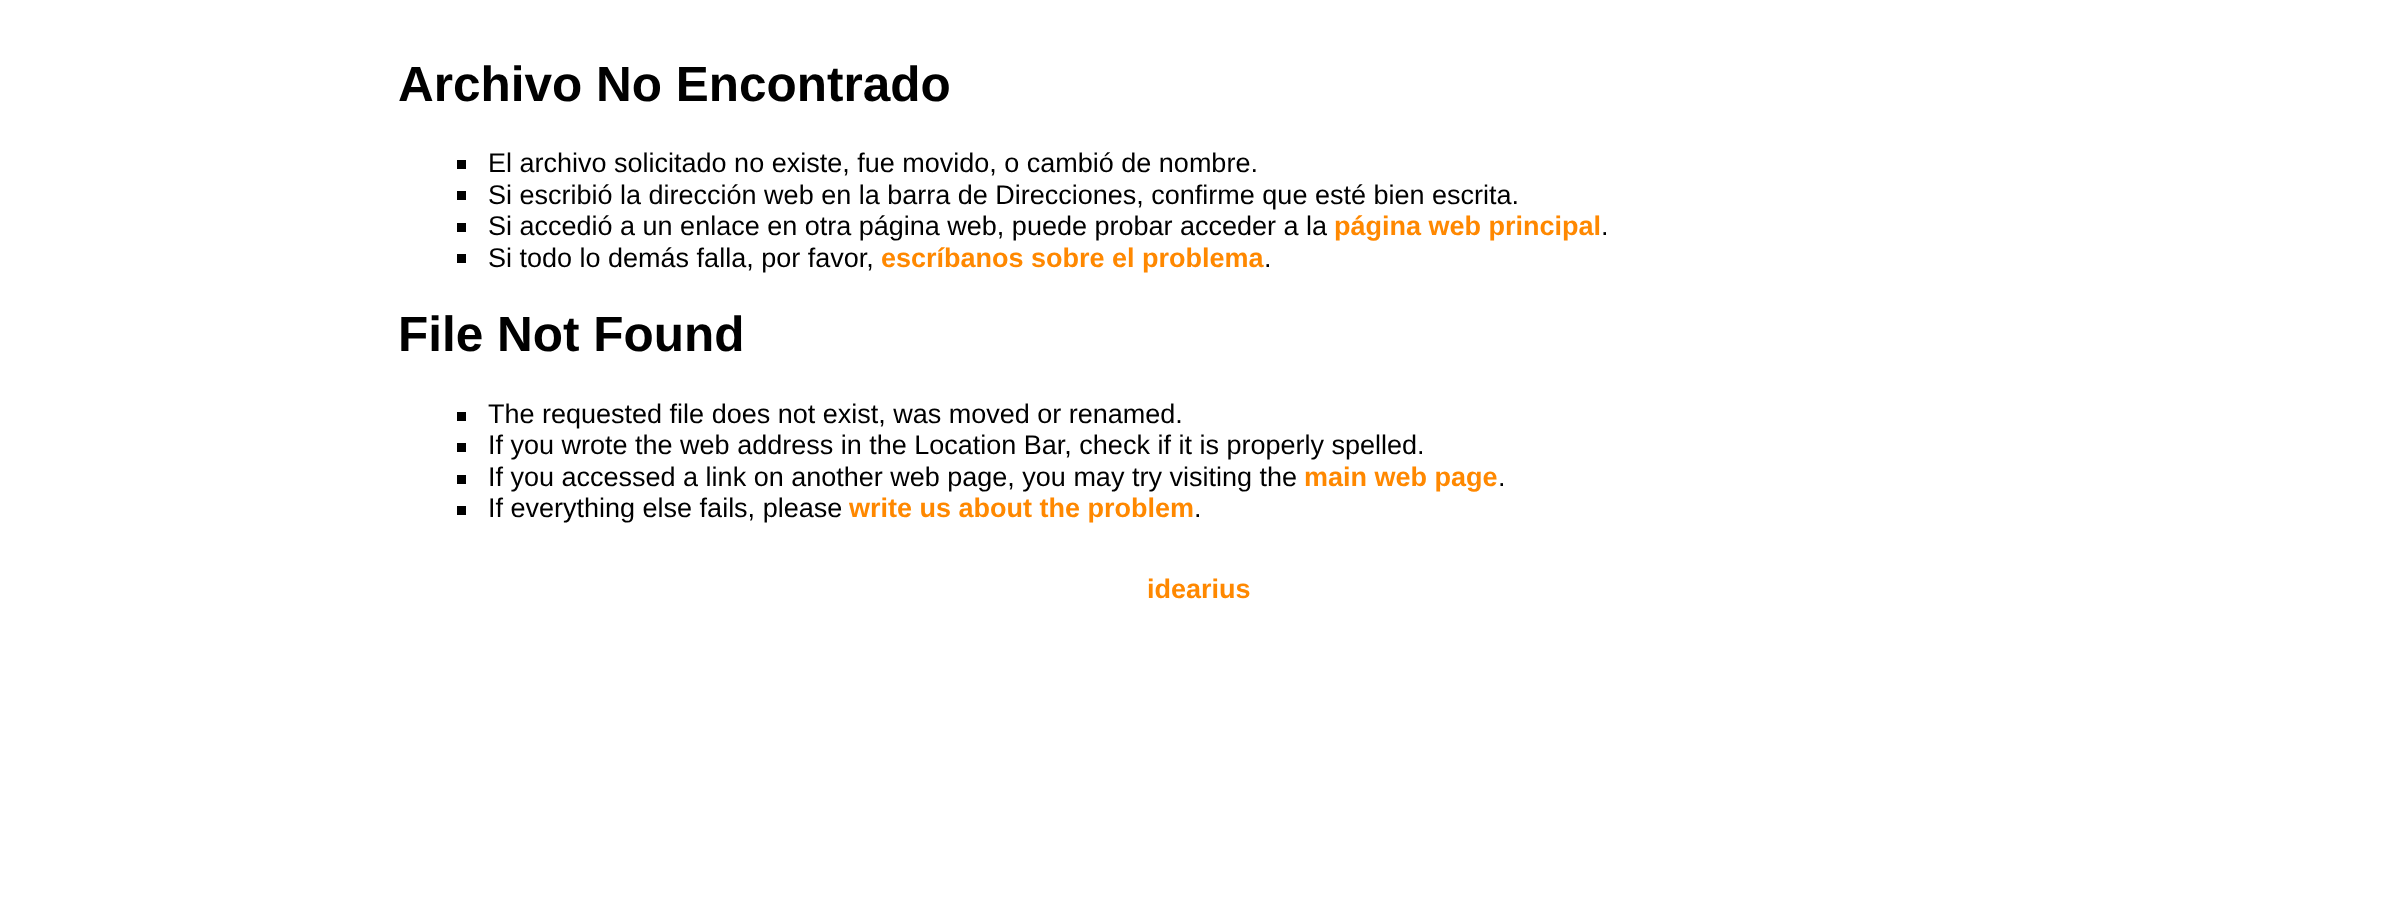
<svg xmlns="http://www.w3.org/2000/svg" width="2397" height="922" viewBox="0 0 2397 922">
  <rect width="100%" height="100%" fill="#ffffff"/>
  <text x="398" y="101" font-family="Liberation Sans" font-size="49.5" font-weight="bold" fill="#000000">Archivo No Encontrado</text>
  <rect x="457" y="160" width="9" height="9" fill="#000000"/>
  <text x="488" y="172" font-family="Liberation Sans" font-size="27" fill="#000000">El archivo solicitado no existe, fue movido, o cambió de nombre.</text>
  <rect x="457" y="191" width="9" height="9" fill="#000000"/>
  <text x="488" y="204" font-family="Liberation Sans" font-size="27" fill="#000000">Si escribió la dirección web en la barra de Direcciones, confirme que esté bien escrita.</text>
  <rect x="457" y="223" width="9" height="9" fill="#000000"/>
  <text x="488" y="235" font-family="Liberation Sans" font-size="27" fill="#000000">Si accedió a un enlace en otra página web, puede probar acceder a la</text>
  <text x="1334" y="235" font-family="Liberation Sans" font-size="27" font-weight="bold" fill="#ff8800">página web principal</text>
  <text x="1601" y="235" font-family="Liberation Sans" font-size="27" fill="#000000">.</text>
  <rect x="457" y="254" width="9" height="9" fill="#000000"/>
  <text x="488" y="267" font-family="Liberation Sans" font-size="27" fill="#000000">Si todo lo demás falla, por favor,</text>
  <text x="881" y="267" font-family="Liberation Sans" font-size="27" font-weight="bold" fill="#ff8800">escríbanos sobre el problema</text>
  <text x="1264" y="267" font-family="Liberation Sans" font-size="27" fill="#000000">.</text>
  <text x="398" y="351" font-family="Liberation Sans" font-size="49.5" font-weight="bold" fill="#000000">File Not Found</text>
  <rect x="457" y="412" width="9" height="9" fill="#000000"/>
  <text x="488" y="423" font-family="Liberation Sans" font-size="27" fill="#000000">The requested file does not exist, was moved or renamed.</text>
  <rect x="457" y="443" width="9" height="9" fill="#000000"/>
  <text x="488" y="454" font-family="Liberation Sans" font-size="27" fill="#000000">If you wrote the web address in the Location Bar, check if it is properly spelled.</text>
  <rect x="457" y="475" width="9" height="9" fill="#000000"/>
  <text x="488" y="486" font-family="Liberation Sans" font-size="27" fill="#000000">If you accessed a link on another web page, you may try visiting the</text>
  <text x="1304" y="486" font-family="Liberation Sans" font-size="27" font-weight="bold" fill="#ff8800">main web page</text>
  <text x="1498" y="486" font-family="Liberation Sans" font-size="27" fill="#000000">.</text>
  <rect x="457" y="506" width="9" height="9" fill="#000000"/>
  <text x="488" y="517" font-family="Liberation Sans" font-size="27" fill="#000000">If everything else fails, please</text>
  <text x="849" y="517" font-family="Liberation Sans" font-size="27" font-weight="bold" fill="#ff8800">write us about the problem</text>
  <text x="1194" y="517" font-family="Liberation Sans" font-size="27" fill="#000000">.</text>
  <text x="1147" y="598" font-family="Liberation Sans" font-size="27" font-weight="bold" fill="#ff8800">idearius</text>
</svg>
